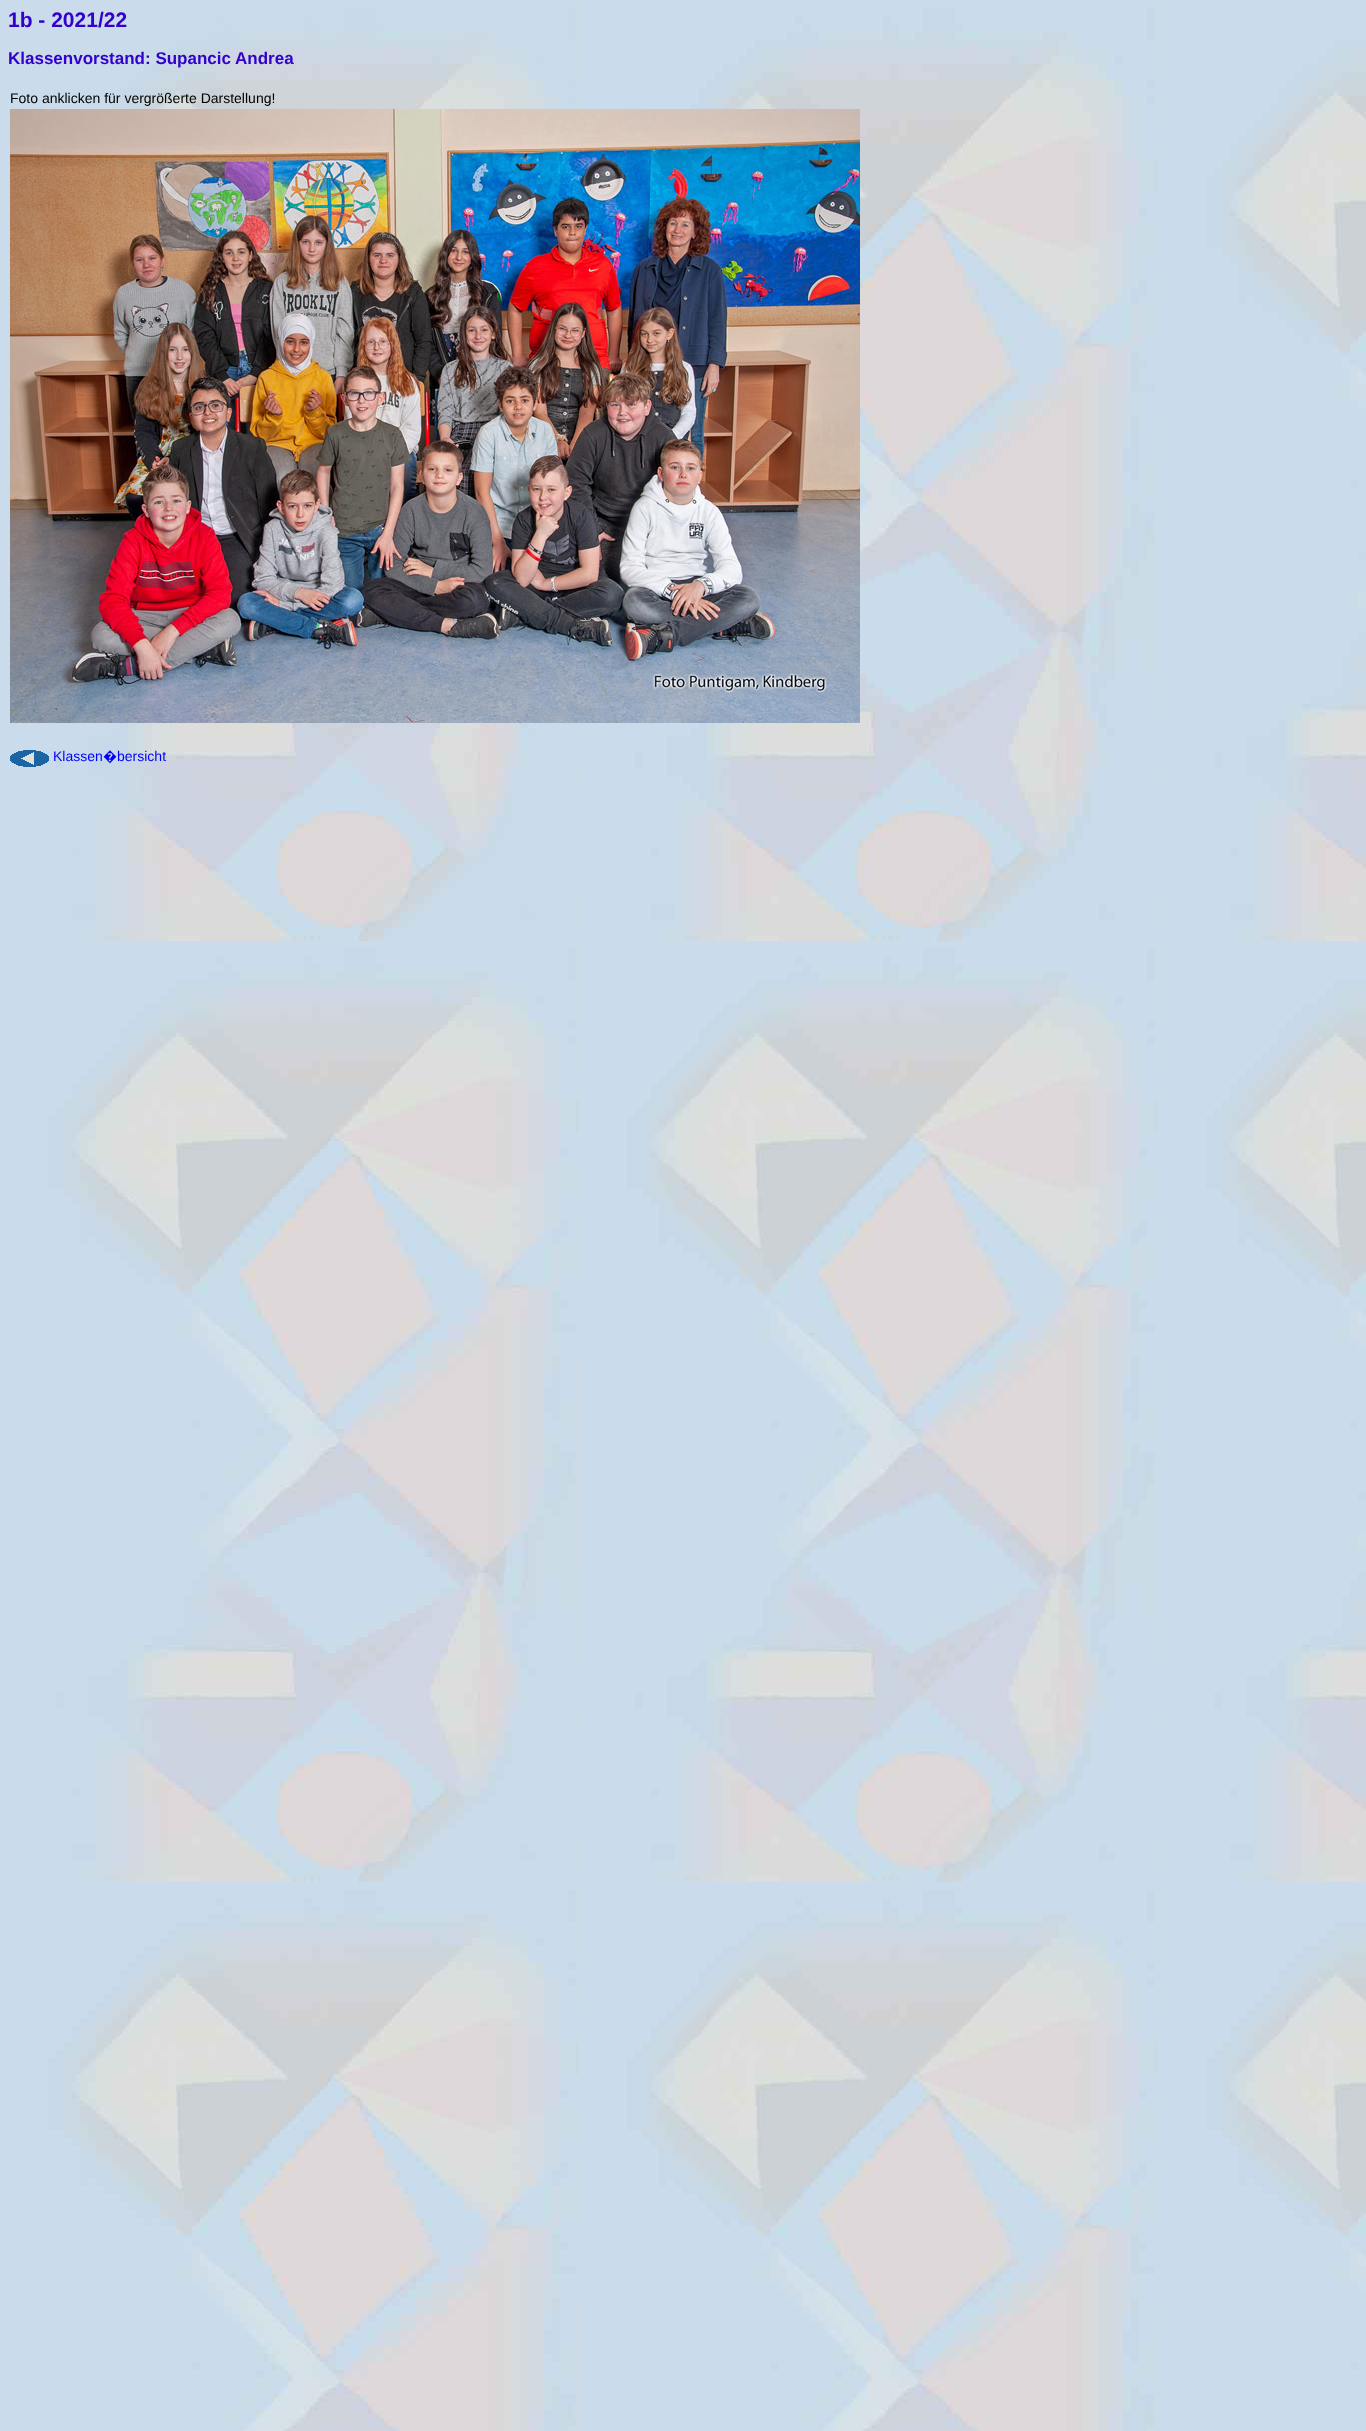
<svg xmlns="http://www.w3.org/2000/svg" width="1366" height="2431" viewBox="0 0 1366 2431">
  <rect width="100%" height="100%" fill="#ffffff"/>
  <image x="0" y="0" width="1366" height="2431" href="img1.png"/>
  <text x="8" y="27" font-family="Liberation Sans" font-size="21" font-weight="bold" fill="#3300cc">1b - 2021/22</text>
  <text x="8" y="64" font-family="Liberation Sans" font-size="17" font-weight="bold" fill="#3300cc">Klassenvorstand: Supancic Andrea</text>
  <text x="10" y="103" font-family="Liberation Sans" font-size="14" fill="#000000">Foto anklicken für vergrößerte Darstellung!</text>
  <image x="10" y="109" width="850" height="614" href="img2.png"/>
  <image x="10" y="750" width="39" height="17" href="img3.png"/>
  <text x="53" y="761" font-family="Liberation Sans" font-size="14" fill="#0000ff">Klassen</text>
  <text x="103" y="761" font-family="Noto Sans" font-size="14" fill="#0000ff">�</text>
  <text x="117" y="761" font-family="Liberation Sans" font-size="14" fill="#0000ff">bersicht</text>
</svg>
